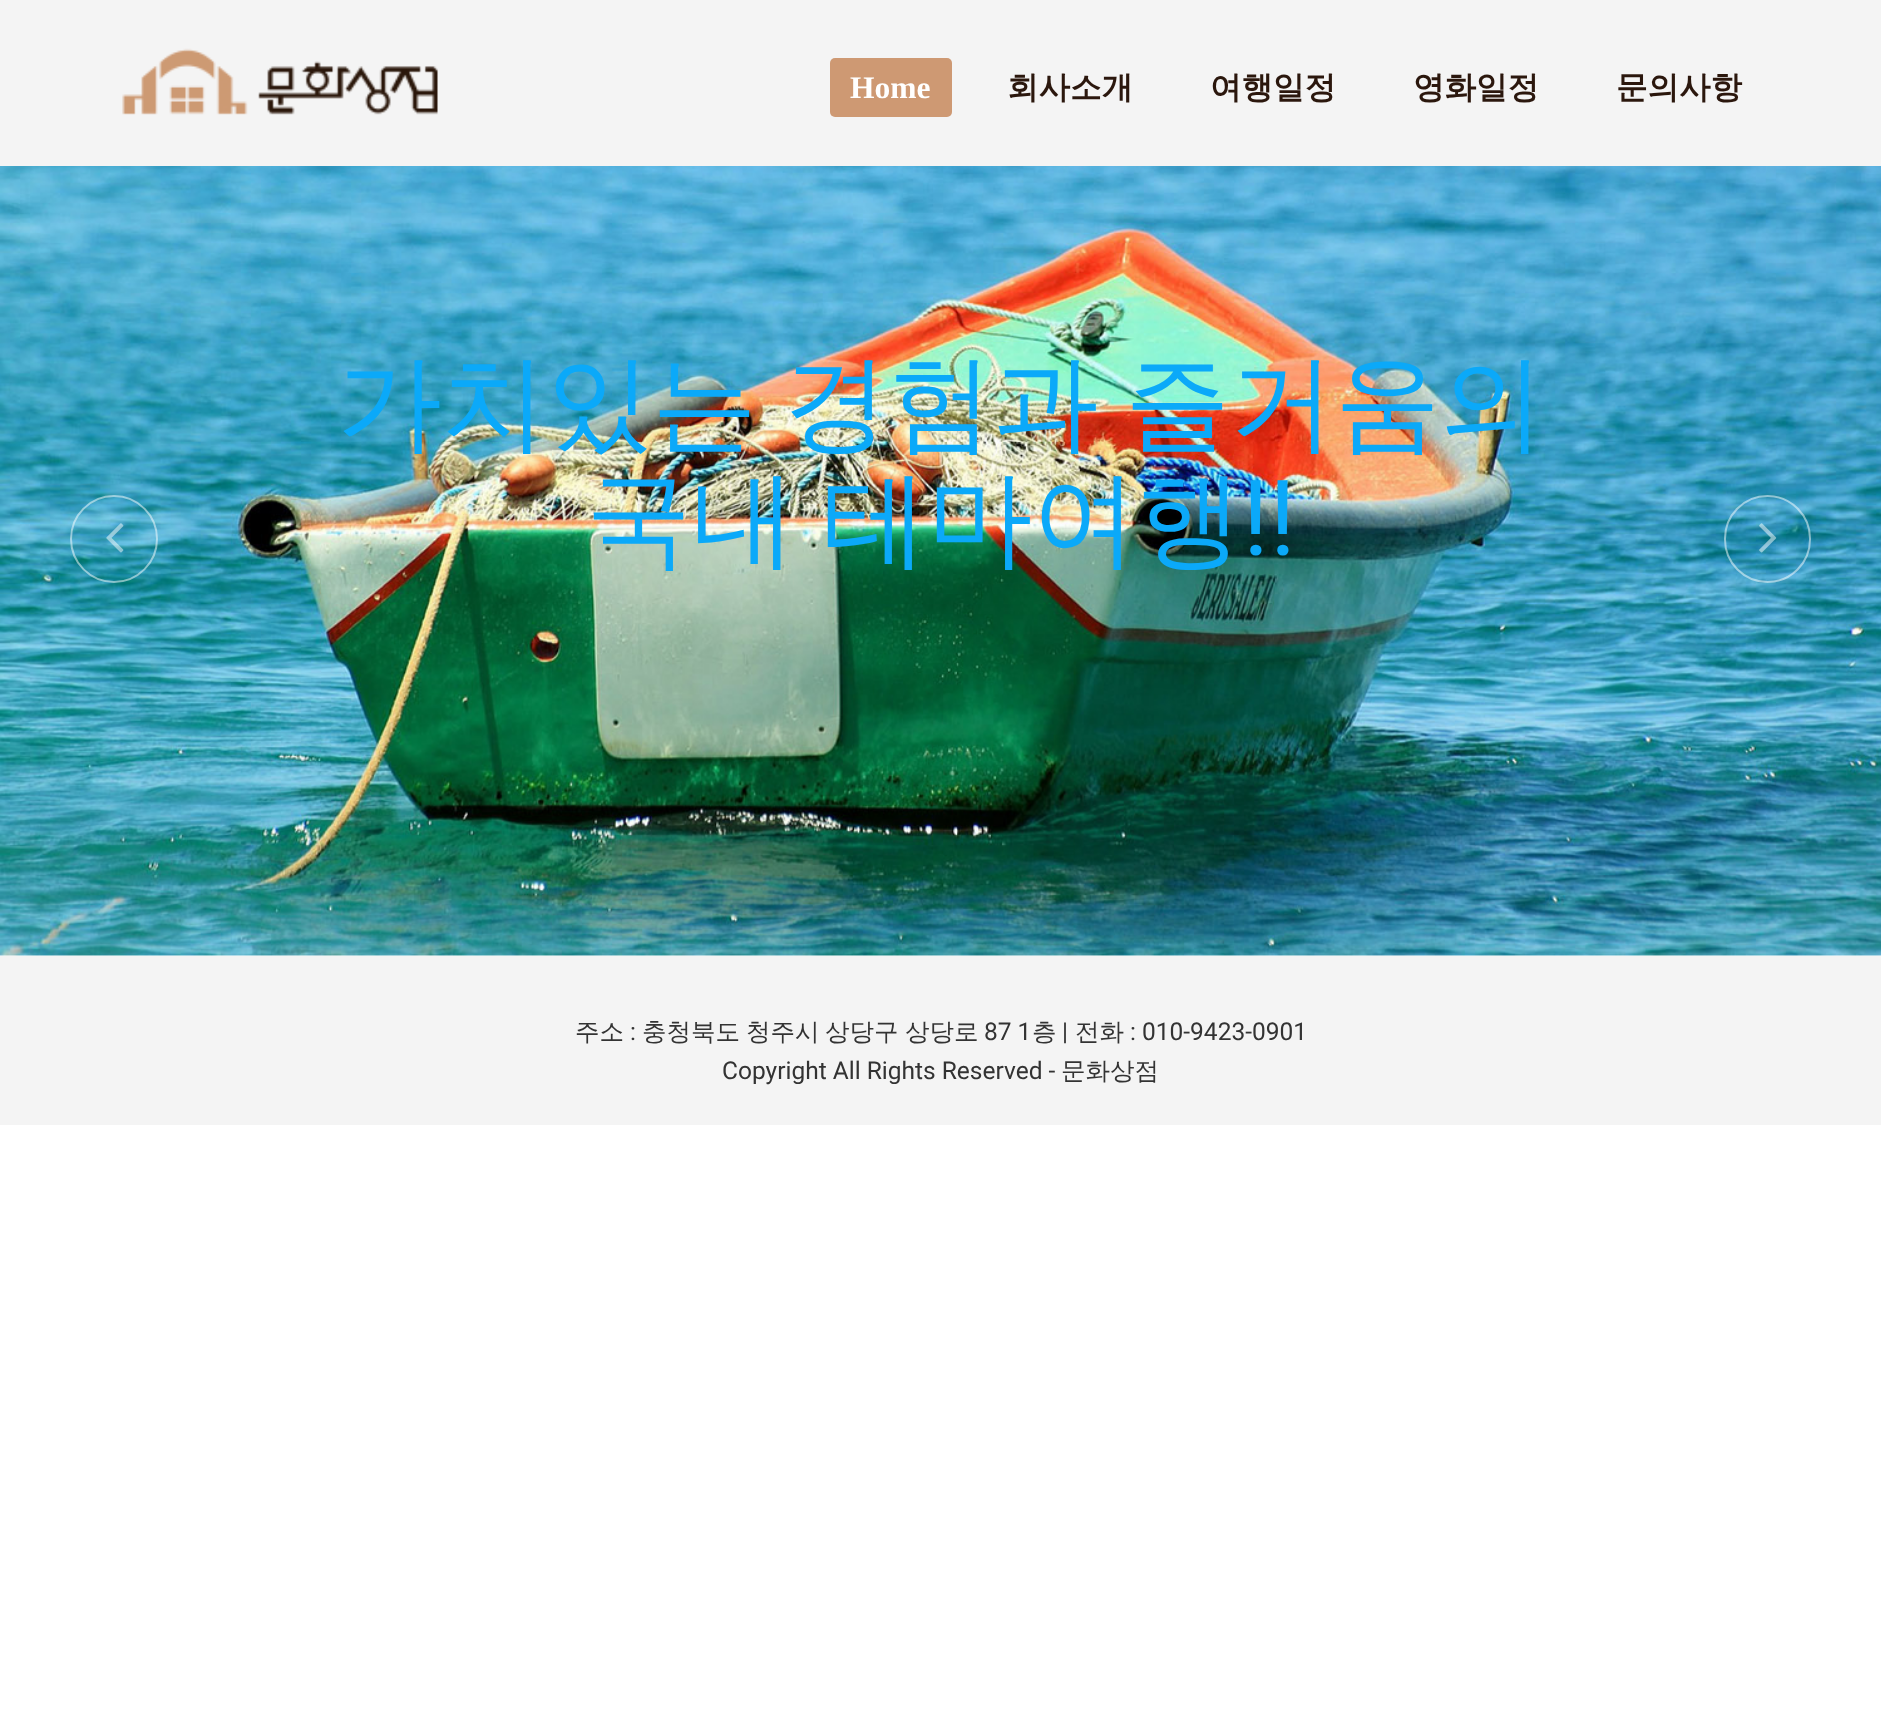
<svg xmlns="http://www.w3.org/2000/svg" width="1881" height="1730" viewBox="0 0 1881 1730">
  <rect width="100%" height="100%" fill="#ffffff"/>
  <rect x="0" y="0" width="1881" height="166" fill="#f4f4f4"/>
  <image x="122" y="48" width="316" height="67" href="img1.png"/>
  <rect x="830" y="58" width="122" height="59" rx="5" fill="#ce9973"/>
  <text x="850" y="98" font-family="Liberation Serif" font-size="31.5" font-weight="bold" fill="#ffffff">Home</text>
  <text x="1007" y="98" font-family="WenQuanYi Zen Hei" font-size="31.5" font-weight="bold" fill="#2b170d">회사소개</text>
  <text x="1210" y="98" font-family="WenQuanYi Zen Hei" font-size="31.5" font-weight="bold" fill="#2b170d">여행일정</text>
  <text x="1413" y="98" font-family="WenQuanYi Zen Hei" font-size="31.5" font-weight="bold" fill="#2b170d">영화일정</text>
  <text x="1616" y="98" font-family="WenQuanYi Zen Hei" font-size="31.5" font-weight="bold" fill="#2b170d">문의사항</text>
  <image x="0" y="166" width="1881" height="790" href="img3.png"/>
  <circle cx="114" cy="539" r="43" fill="none" stroke="#ffffff" stroke-opacity="0.5" stroke-width="2"/>
  <image x="106" y="523" width="18" height="30" href="img2.png"/>
  <text x="337" y="439" word-spacing="-5" font-family="WenQuanYi Zen Hei" font-size="105" font-weight="500" fill="#0ba9f9">가치있는 경험과 즐거움의</text>
  <text x="586" y="555" word-spacing="-5" font-family="WenQuanYi Zen Hei" font-size="105" font-weight="500" fill="#0ba9f9">국내 테마여행</text>
  <text x="1242" y="555" font-family="Roboto" font-size="105" fill="#0ba9f9">!!</text>
  <rect x="1725" y="496" width="85" height="86" rx="42.5" fill="none" stroke="#ffffff" stroke-opacity="0.5" stroke-width="2"/>
  <image x="1759" y="523" width="18" height="30" href="img4.png"/>
  <rect x="0" y="956" width="1881" height="169" fill="#f4f4f4"/>
  <text x="575" y="1040" font-family="WenQuanYi Zen Hei" font-size="24.5" font-weight="500" fill="#333333">주소</text>
  <text x="630" y="1040" font-family="Roboto" font-size="24.5" fill="#333333">:</text>
  <text x="642" y="1040" font-family="WenQuanYi Zen Hei" font-size="24.5" font-weight="500" fill="#333333">충청북도</text>
  <text x="746" y="1040" font-family="WenQuanYi Zen Hei" font-size="24.5" font-weight="500" fill="#333333">청주시</text>
  <text x="825" y="1040" font-family="WenQuanYi Zen Hei" font-size="24.5" font-weight="500" fill="#333333">상당구</text>
  <text x="905" y="1040" font-family="WenQuanYi Zen Hei" font-size="24.5" font-weight="500" fill="#333333">상당로</text>
  <text x="984" y="1040" font-family="Roboto" font-size="24.5" fill="#333333">87 1</text>
  <text x="1032" y="1040" font-family="WenQuanYi Zen Hei" font-size="24.5" font-weight="500" fill="#333333">층</text>
  <text x="1062" y="1040" font-family="Roboto" font-size="24.5" fill="#333333">|</text>
  <text x="1075" y="1040" font-family="WenQuanYi Zen Hei" font-size="24.5" font-weight="500" fill="#333333">전화</text>
  <text x="1130" y="1040" font-family="Roboto" font-size="24.5" fill="#333333">: 010-9423-0901</text>
  <text x="722" y="1079" font-family="Roboto" font-size="24.5" fill="#333333">Copyright All Rights Reserved -</text>
  <text x="1061" y="1079" font-family="WenQuanYi Zen Hei" font-size="24.5" font-weight="500" fill="#333333">문화상점</text>
</svg>
